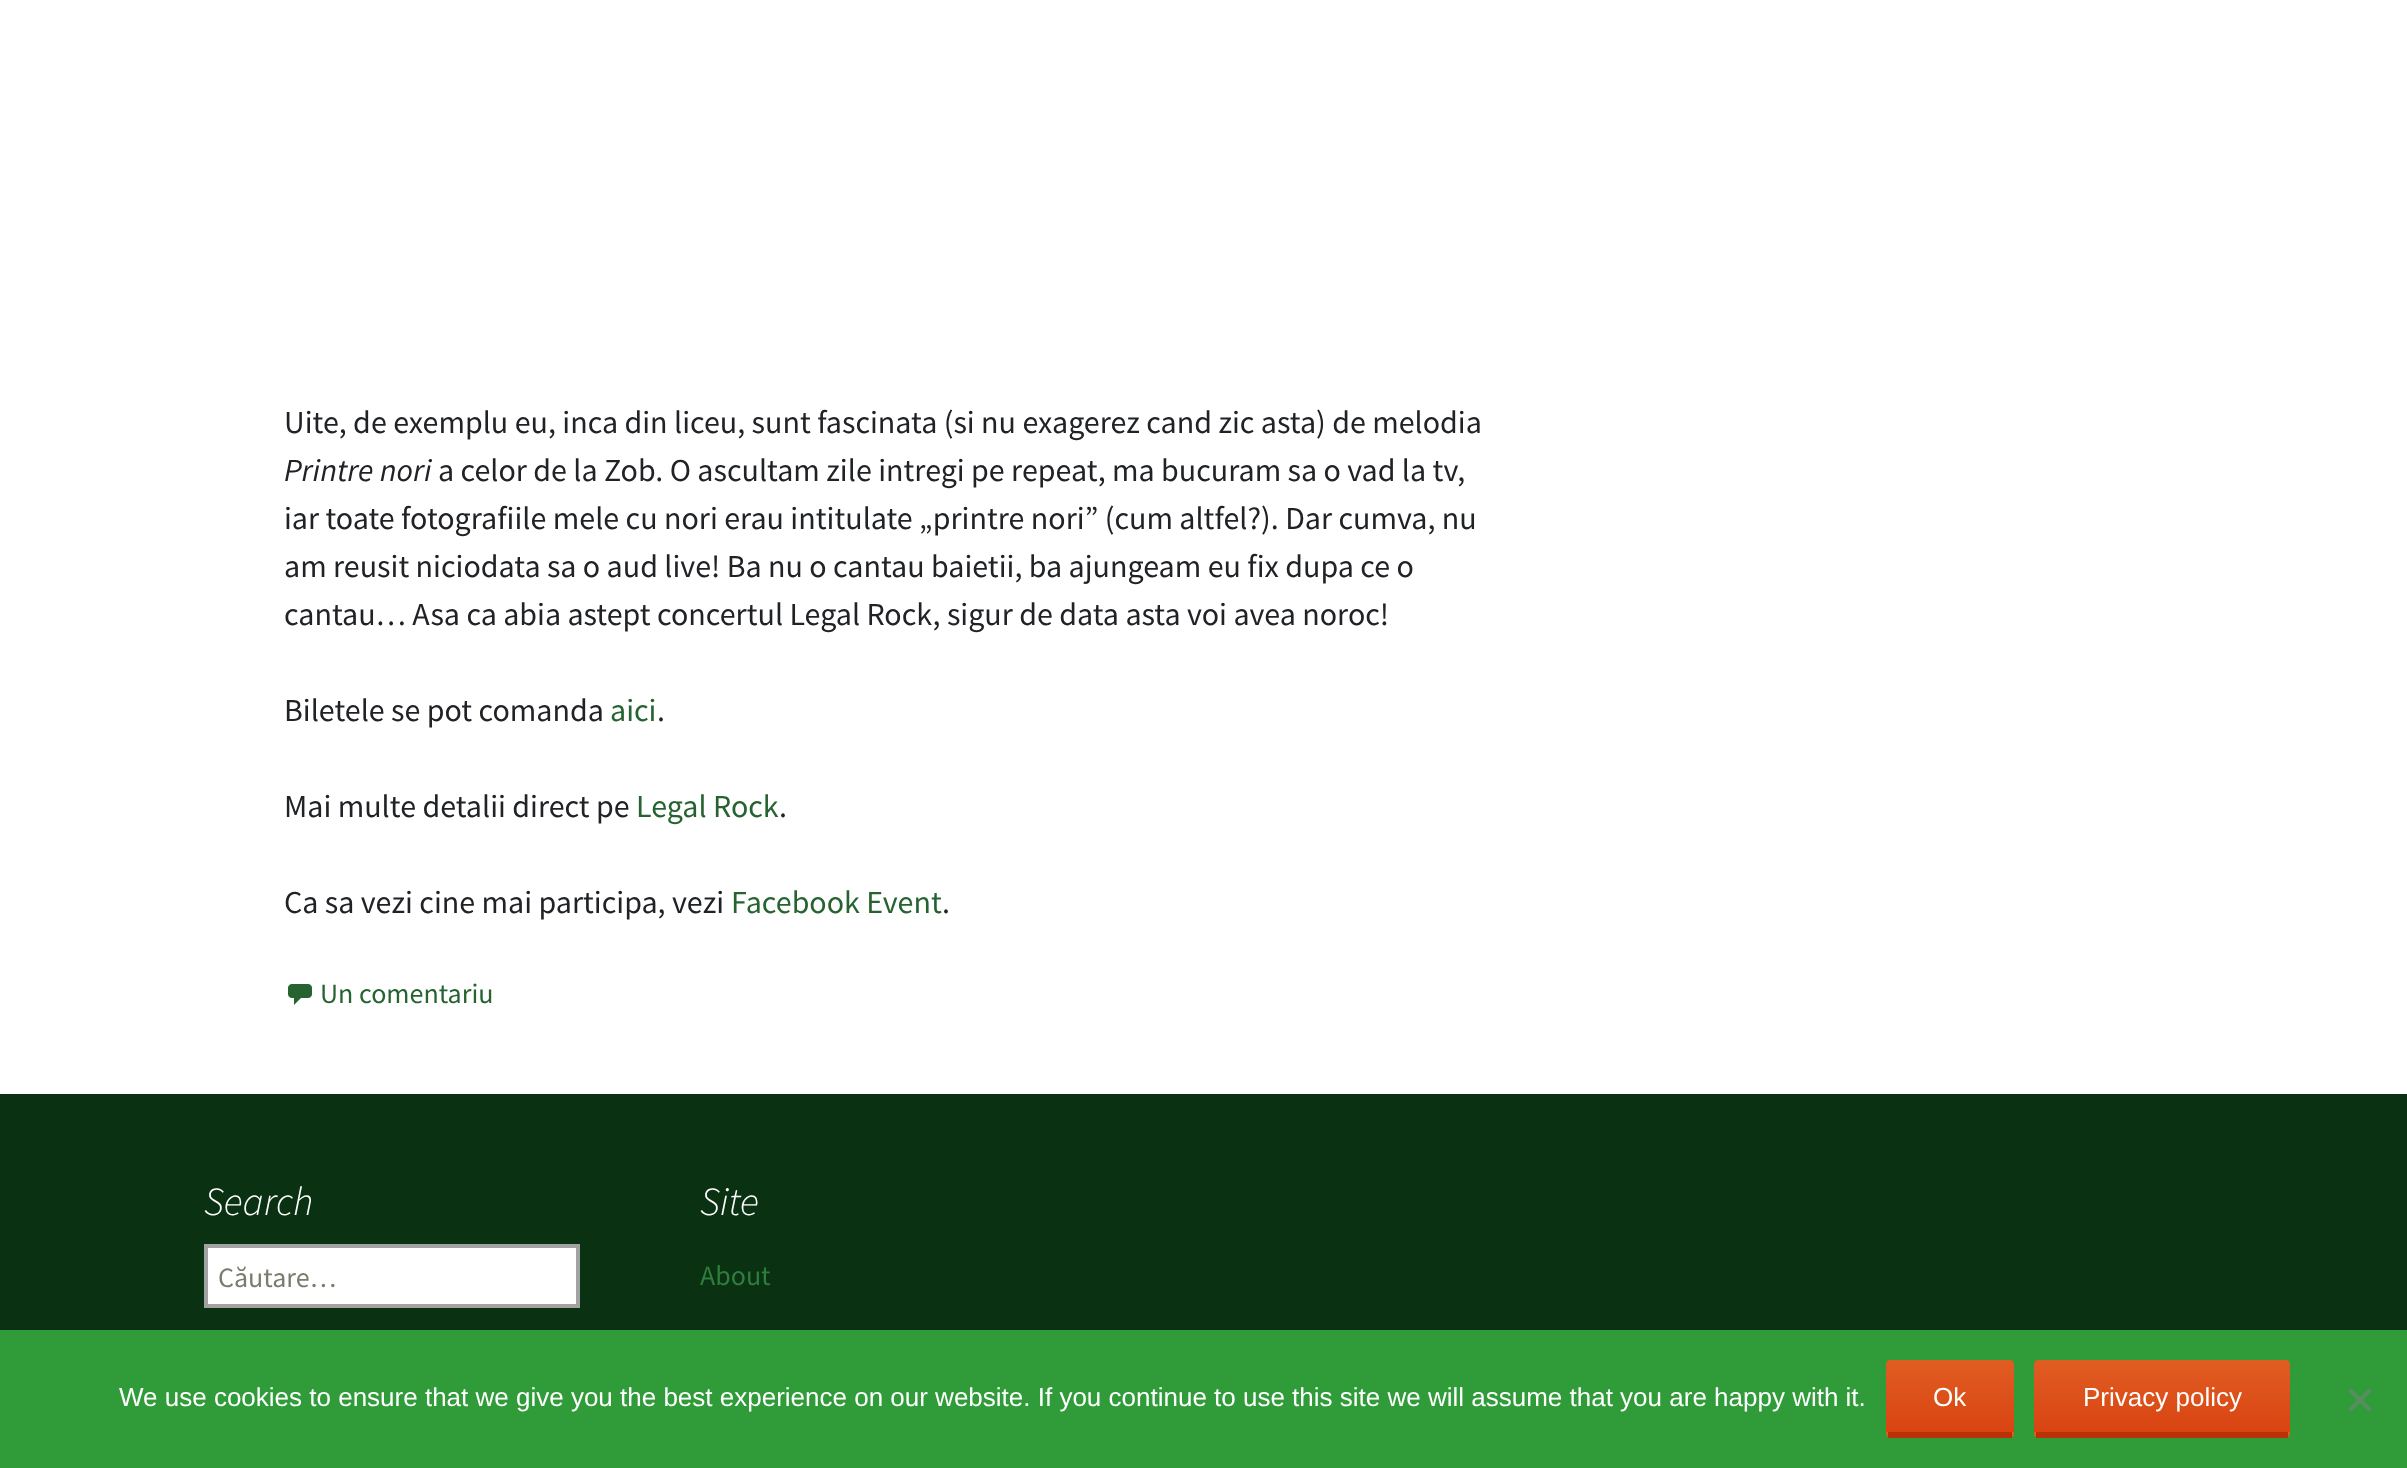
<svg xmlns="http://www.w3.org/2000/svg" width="2407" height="1468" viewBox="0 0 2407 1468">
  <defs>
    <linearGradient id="g1" gradientUnits="userSpaceOnUse" x1="1950" y1="1360" x2="1950" y2="1432"><stop offset="0" stop-color="#e05d22"/><stop offset="1" stop-color="#d94412"/></linearGradient>
    <linearGradient id="g2" gradientUnits="userSpaceOnUse" x1="1950" y1="1432" x2="1950" y2="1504"><stop offset="0" stop-color="#e05d22"/><stop offset="1" stop-color="#d94412"/></linearGradient>
    <linearGradient id="g3" gradientUnits="userSpaceOnUse" x1="2162" y1="1360" x2="2162" y2="1432"><stop offset="0" stop-color="#e05d22"/><stop offset="1" stop-color="#d94412"/></linearGradient>
    <linearGradient id="g4" gradientUnits="userSpaceOnUse" x1="2162" y1="1432" x2="2162" y2="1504"><stop offset="0" stop-color="#e05d22"/><stop offset="1" stop-color="#d94412"/></linearGradient>
  </defs>
  <rect width="100%" height="100%" fill="#ffffff"/>
  <text x="284" y="433" font-family="Source Sans Pro" font-size="32" fill="#202225">Uite, de exemplu eu, inca din liceu, sunt fascinata (si nu exagerez cand zic asta) de melodia</text>
  <text x="284" y="481" font-family="Source Sans Pro" font-size="32" font-style="italic" fill="#202225">Printre nori</text>
  <text x="438" y="481" font-family="Source Sans Pro" font-size="32" fill="#202225">a celor de la Zob. O ascultam zile intregi pe repeat, ma bucuram sa o vad la tv,</text>
  <text x="284" y="529" font-family="Source Sans Pro" font-size="32" fill="#202225">iar toate fotografiile mele cu nori erau intitulate „printre nori” (cum altfel?). Dar cumva, nu</text>
  <text x="284" y="577" font-family="Source Sans Pro" font-size="32" fill="#202225">am reusit niciodata sa o aud live! Ba nu o cantau baietii, ba ajungeam eu fix dupa ce o</text>
  <text x="284" y="625" font-family="Source Sans Pro" font-size="32" fill="#202225">cantau… Asa ca abia astept concertul Legal Rock, sigur de data asta voi avea noroc!</text>
  <text x="284" y="721" font-family="Source Sans Pro" font-size="32" fill="#202225">Biletele se pot comanda</text>
  <text x="610" y="721" font-family="Source Sans Pro" font-size="32" fill="#266331">aici</text>
  <text x="657" y="721" font-family="Source Sans Pro" font-size="32" fill="#202225">.</text>
  <text x="284" y="817" font-family="Source Sans Pro" font-size="32" fill="#202225">Mai multe detalii direct pe</text>
  <text x="636" y="817" font-family="Source Sans Pro" font-size="32" fill="#266331">Legal Rock</text>
  <text x="779" y="817" font-family="Source Sans Pro" font-size="32" fill="#202225">.</text>
  <text x="284" y="913" font-family="Source Sans Pro" font-size="32" fill="#202225">Ca sa vezi cine mai participa, vezi</text>
  <text x="731" y="913" font-family="Source Sans Pro" font-size="32" fill="#266331">Facebook Event</text>
  <text x="942" y="913" font-family="Source Sans Pro" font-size="32" fill="#202225">.</text>
  <image x="288" y="984" width="24" height="21" href="img1.png"/>
  <text x="320" y="1003" font-family="Source Sans Pro" font-size="28" fill="#266331">Un comentariu</text>
  <rect x="0" y="1094" width="2407" height="236" fill="#0a3112"/>
  <text x="204" y="1215" font-family="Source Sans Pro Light" font-size="40" font-weight="300" font-style="italic" fill="#ffffff">Search</text>
  <rect x="206" y="1246" width="372" height="60" fill="#ffffff" stroke="#a2a2a2" stroke-width="4"/>
  <text x="218" y="1287" font-family="Source Sans Pro" font-size="28" fill="#7d7b6d">Căutare…</text>
  <text x="700" y="1215" font-family="Source Sans Pro Light" font-size="40" font-weight="300" font-style="italic" fill="#ffffff">Site</text>
  <text x="700" y="1285" font-family="Source Sans Pro" font-size="28" fill="#2f7d3d">About</text>
  <rect x="0" y="1330" width="2407" height="138" fill="#309b39"/>
  <text x="119" y="1406" font-family="Liberation Sans" font-size="26" fill="#ffffff">We use cookies to ensure that we give you the best experience on our website. If you continue to use this site we will assume that you are happy with it.</text>
  <path d="M1890 1360H2010C2012 1360 2014 1362 2014 1364V1432H1886V1364C1886 1362 1888 1360 1890 1360Z" fill="url(#g1)"/>
  <path d="M1886 1432H2014V1434C2014 1436 2012 1438 2010 1438H1890C1888 1438 1886 1436 1886 1434Z" fill="url(#g2)"/>
  <rect x="1888" y="1432" width="124" height="6" fill="#b93207"/>
  <text x="1933" y="1406" font-family="Liberation Sans" font-size="26" fill="#ffffff">Ok</text>
  <path d="M2038 1360H2286C2288 1360 2290 1362 2290 1364V1432H2034V1364C2034 1362 2036 1360 2038 1360Z" fill="url(#g3)"/>
  <path d="M2034 1432H2290V1434C2290 1436 2288 1438 2286 1438H2038C2036 1438 2034 1436 2034 1434Z" fill="url(#g4)"/>
  <rect x="2036" y="1432" width="252" height="6" fill="#b93207"/>
  <text x="2083" y="1406" font-family="Liberation Sans" font-size="26" fill="#ffffff">Privacy policy</text>
  <path d="M2369 1388L2372 1391L2351 1412L2348 1409Z" fill="#588e5d"/>
  <path d="M2348 1391L2351 1388L2372 1409L2369 1412Z" fill="#588e5d"/>
</svg>
